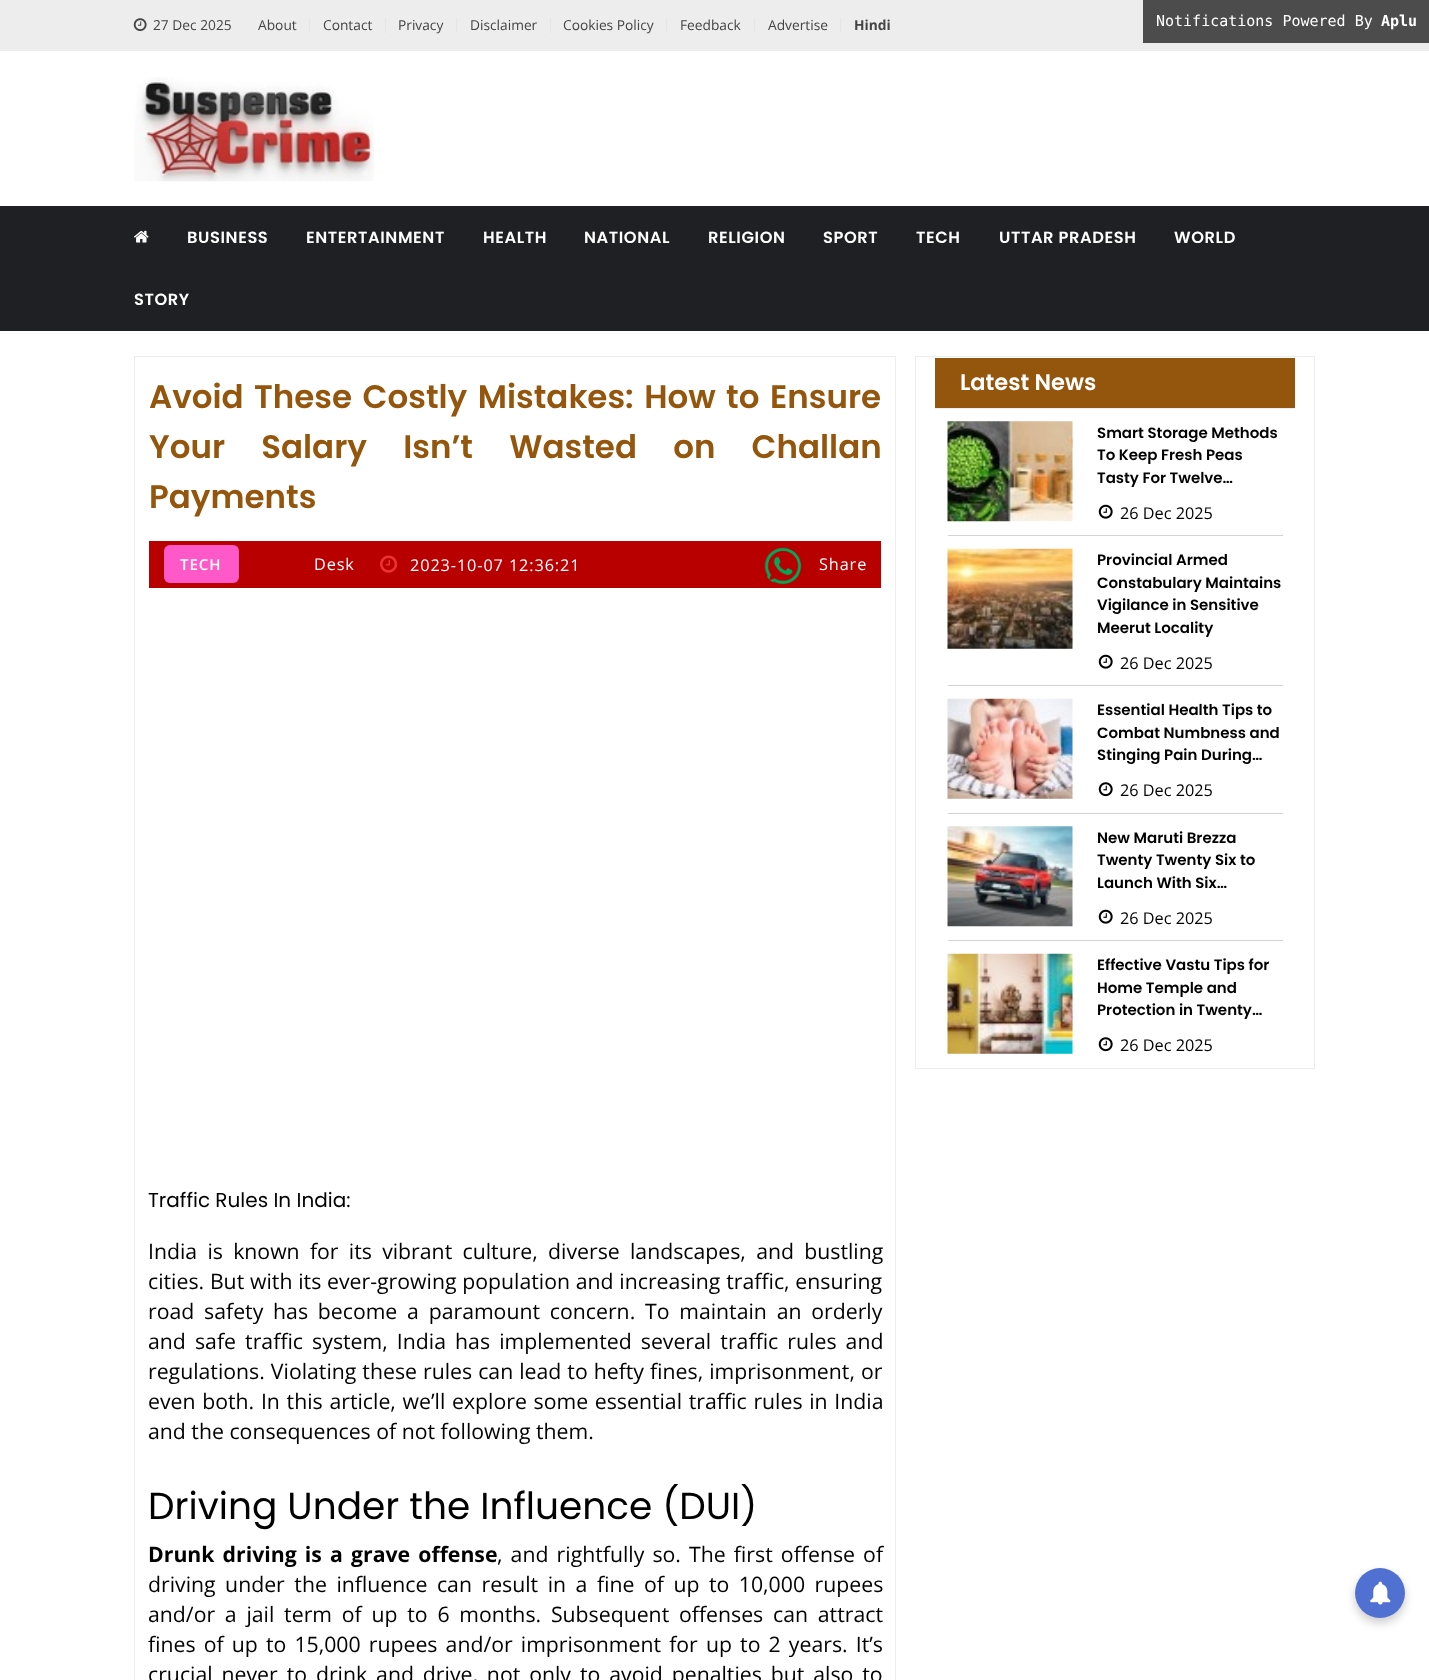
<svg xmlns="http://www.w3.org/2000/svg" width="1429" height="1680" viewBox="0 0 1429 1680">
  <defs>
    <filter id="blur1" x="-50%" y="-200%" width="200%" height="500%"><feGaussianBlur stdDeviation="5"/></filter>
  </defs>
  <rect width="100%" height="100%" fill="#ffffff"/>
  <rect x="0" y="0" width="1429" height="51" fill="#ededed"/>
  <image x="133" y="18" width="14" height="14" href="img1.png"/>
  <text x="153" y="30" font-family="Open Sans" font-size="13.75" fill="#444444">27 Dec 2025</text>
  <text x="258" y="30" font-family="Open Sans" font-size="13.75" fill="#444444">About</text>
  <rect x="309" y="18" width="1" height="15" fill="#e5e5e5"/>
  <text x="323" y="30" font-family="Open Sans" font-size="13.75" fill="#444444">Contact</text>
  <rect x="385" y="18" width="1" height="15" fill="#e5e5e5"/>
  <text x="398" y="30" font-family="Open Sans" font-size="13.75" fill="#444444">Privacy</text>
  <rect x="456" y="18" width="1" height="15" fill="#e5e5e5"/>
  <text x="470" y="30" font-family="Open Sans" font-size="13.75" fill="#444444">Disclaimer</text>
  <rect x="550" y="18" width="1" height="15" fill="#e5e5e5"/>
  <text x="563" y="30" font-family="Open Sans" font-size="13.75" fill="#444444">Cookies Policy</text>
  <rect x="666" y="18" width="1" height="15" fill="#e5e5e5"/>
  <text x="680" y="30" font-family="Open Sans" font-size="13.75" fill="#444444">Feedback</text>
  <rect x="754" y="18" width="1" height="15" fill="#e5e5e5"/>
  <text x="768" y="30" font-family="Open Sans" font-size="13.75" fill="#444444">Advertise</text>
  <rect x="840" y="18" width="1" height="15" fill="#e5e5e5"/>
  <text x="854" y="30" font-family="Open Sans" font-size="13.75" font-weight="bold" fill="#444444">Hindi</text>
  <image x="134" y="77" width="240" height="105" href="img2.png"/>
  <rect x="0" y="206" width="1429" height="125" fill="#1f2024"/>
  <image x="134" y="230" width="15" height="13" href="img3.png"/>
  <text x="187" y="243" font-family="Poppins" font-size="16.25" font-weight="600" letter-spacing="0.6" fill="#ffffff">BUSINESS</text>
  <text x="306" y="243" font-family="Poppins" font-size="16.25" font-weight="600" letter-spacing="0.6" fill="#ffffff">ENTERTAINMENT</text>
  <text x="483" y="243" font-family="Poppins" font-size="16.25" font-weight="600" letter-spacing="0.6" fill="#ffffff">HEALTH</text>
  <text x="584" y="243" font-family="Poppins" font-size="16.25" font-weight="600" letter-spacing="0.6" fill="#ffffff">NATIONAL</text>
  <text x="708" y="243" font-family="Poppins" font-size="16.25" font-weight="600" letter-spacing="0.6" fill="#ffffff">RELIGION</text>
  <text x="823" y="243" font-family="Poppins" font-size="16.25" font-weight="600" letter-spacing="0.6" fill="#ffffff">SPORT</text>
  <text x="916" y="243" font-family="Poppins" font-size="16.25" font-weight="600" letter-spacing="0.6" fill="#ffffff">TECH</text>
  <text x="999" y="243" font-family="Poppins" font-size="16.25" font-weight="600" letter-spacing="0.6" fill="#ffffff">UTTAR PRADESH</text>
  <text x="1174" y="243" font-family="Poppins" font-size="16.25" font-weight="600" letter-spacing="0.6" fill="#ffffff">WORLD</text>
  <text x="134" y="305" font-family="Poppins" font-size="16.25" font-weight="600" letter-spacing="0.6" fill="#ffffff">STORY</text>
  <rect x="134.5" y="356.5" width="761" height="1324" fill="none" stroke="#ededed"/>
  <text x="149" y="408" word-spacing="2.75" font-family="Poppins" font-size="32.5" font-weight="600" fill="#94550c">Avoid These Costly Mistakes: How to Ensure</text>
  <text x="149" y="458" word-spacing="28.5" font-family="Poppins" font-size="32.5" font-weight="600" fill="#94550c">Your Salary Isn’t Wasted on Challan</text>
  <text x="149" y="508" font-family="Poppins" font-size="32.5" font-weight="600" fill="#94550c">Payments</text>
  <rect x="149" y="541" width="732" height="47" fill="#b80000"/>
  <rect x="164" y="545" width="75" height="38" rx="6" fill="#ff58c8"/>
  <text x="180" y="570" font-family="Open Sans" font-size="15" font-weight="600" letter-spacing="1" fill="#ffffff">TECH</text>
  <text x="314" y="570" font-family="Open Sans" font-size="16.25" letter-spacing="0.9" fill="#ffffff">Desk</text>
  <image x="380" y="555" width="18" height="18" href="img4.png"/>
  <text x="410" y="571" font-family="Open Sans" font-size="16.25" letter-spacing="0.9" fill="#ffffff">2023-10-07 12:36:21</text>
  <image x="764" y="547" width="38" height="38" href="img5.png"/>
  <text x="819" y="570" font-family="Open Sans" font-size="16.25" letter-spacing="0.9" fill="#ffffff">Share</text>
  <text x="148" y="1207" font-family="Poppins" font-size="20" fill="#000000">Traffic Rules In India:</text>
  <text x="148" y="1259" word-spacing="4.75" font-family="Open Sans" font-size="21.25" fill="#000000">India is known for its vibrant culture, diverse landscapes, and bustling</text>
  <text x="148" y="1289" word-spacing="0.25" font-family="Open Sans" font-size="21.25" fill="#000000">cities. But with its ever-growing population and increasing traffic, ensuring</text>
  <text x="148" y="1319" word-spacing="4.25" font-family="Open Sans" font-size="21.25" fill="#000000">road safety has become a paramount concern. To maintain an orderly</text>
  <text x="148" y="1349" word-spacing="3.6" font-family="Open Sans" font-size="21.25" fill="#000000">and safe traffic system, India has implemented several traffic rules and</text>
  <text x="148" y="1379" word-spacing="0.5" font-family="Open Sans" font-size="21.25" fill="#000000">regulations. Violating these rules can lead to hefty fines, imprisonment, or</text>
  <text x="148" y="1409" word-spacing="1.2" font-family="Open Sans" font-size="21.25" fill="#000000">even both. In this article, we’ll explore some essential traffic rules in India</text>
  <text x="148" y="1439" font-family="Open Sans" font-size="21.25" fill="#000000">and the consequences of not following them.</text>
  <text x="148" y="1519" font-family="Poppins" font-size="37.5" fill="#000000">Driving Under the Influence (DUI)</text>
  <text x="148" y="1562" word-spacing="2.6" font-family="Open Sans" font-size="21.25" font-weight="bold" fill="#000000">Drunk driving is a grave offense</text>
  <text x="497" y="1562" word-spacing="2.6" font-family="Open Sans" font-size="21.25" fill="#000000">, and rightfully so. The first offense of</text>
  <text x="148" y="1592" word-spacing="4" font-family="Open Sans" font-size="21.25" fill="#000000">driving under the influence can result in a fine of up to 10,000 rupees</text>
  <text x="148" y="1622" word-spacing="4.25" font-family="Open Sans" font-size="21.25" fill="#000000">and/or a jail term of up to 6 months. Subsequent offenses can attract</text>
  <text x="148" y="1652" word-spacing="2.6" font-family="Open Sans" font-size="21.25" fill="#000000">fines of up to 15,000 rupees and/or imprisonment for up to 2 years. It’s</text>
  <text x="148" y="1682" word-spacing="3.4" font-family="Open Sans" font-size="21.25" fill="#000000">crucial never to drink and drive, not only to avoid penalties but also to</text>
  <rect x="915.5" y="356.5" width="399" height="712" fill="none" stroke="#ededed"/>
  <rect x="935" y="358" width="360" height="50" fill="#94550c"/>
  <rect x="935" y="408" width="360" height="1" fill="#ededed"/>
  <text x="960" y="390" font-family="Poppins" font-size="22.5" font-weight="600" fill="#ffffff">Latest News</text>
  <rect x="948" y="535" width="335" height="1" fill="#d3d3d3"/>
  <image x="947" y="421" width="126" height="101" href="img6.png"/>
  <text x="1097" y="438" font-family="Poppins" font-size="15" font-weight="600" fill="#000000">Smart Storage Methods</text>
  <text x="1097" y="460" font-family="Poppins" font-size="15" font-weight="600" fill="#000000">To Keep Fresh Peas</text>
  <text x="1097" y="483" font-family="Poppins" font-size="15" font-weight="600" fill="#000000">Tasty For Twelve…</text>
  <image x="1098" y="504" width="15" height="15" href="img7.png"/>
  <text x="1120" y="519" font-family="Open Sans" font-size="16.25" fill="#000000">26 Dec 2025</text>
  <rect x="948" y="685" width="335" height="1" fill="#d3d3d3"/>
  <image x="947" y="548" width="126" height="101" href="img8.png"/>
  <text x="1097" y="565" font-family="Poppins" font-size="15" font-weight="600" fill="#000000">Provincial Armed</text>
  <text x="1097" y="588" font-family="Poppins" font-size="15" font-weight="600" fill="#000000">Constabulary Maintains</text>
  <text x="1097" y="610" font-family="Poppins" font-size="15" font-weight="600" fill="#000000">Vigilance in Sensitive</text>
  <text x="1097" y="633" font-family="Poppins" font-size="15" font-weight="600" fill="#000000">Meerut Locality</text>
  <image x="1098" y="654" width="15" height="15" href="img7.png"/>
  <text x="1120" y="669" font-family="Open Sans" font-size="16.25" fill="#000000">26 Dec 2025</text>
  <rect x="948" y="813" width="335" height="1" fill="#d3d3d3"/>
  <image x="947" y="698" width="126" height="101" href="img9.png"/>
  <text x="1097" y="715" font-family="Poppins" font-size="15" font-weight="600" fill="#000000">Essential Health Tips to</text>
  <text x="1097" y="738" font-family="Poppins" font-size="15" font-weight="600" fill="#000000">Combat Numbness and</text>
  <text x="1097" y="760" font-family="Poppins" font-size="15" font-weight="600" fill="#000000">Stinging Pain During…</text>
  <image x="1098" y="782" width="15" height="15" href="img10.png"/>
  <text x="1120" y="796" font-family="Open Sans" font-size="16.25" fill="#000000">26 Dec 2025</text>
  <rect x="948" y="940" width="335" height="1" fill="#d3d3d3"/>
  <image x="947" y="826" width="126" height="101" href="img11.png"/>
  <text x="1097" y="843" font-family="Poppins" font-size="15" font-weight="600" fill="#000000">New Maruti Brezza</text>
  <text x="1097" y="865" font-family="Poppins" font-size="15" font-weight="600" fill="#000000">Twenty Twenty Six to</text>
  <text x="1097" y="888" font-family="Poppins" font-size="15" font-weight="600" fill="#000000">Launch With Six…</text>
  <image x="1098" y="909" width="15" height="15" href="img7.png"/>
  <text x="1120" y="924" font-family="Open Sans" font-size="16.25" fill="#000000">26 Dec 2025</text>
  <image x="947" y="953" width="126" height="101" href="img12.png"/>
  <text x="1097" y="970" font-family="Poppins" font-size="15" font-weight="600" fill="#000000">Effective Vastu Tips for</text>
  <text x="1097" y="993" font-family="Poppins" font-size="15" font-weight="600" fill="#000000">Home Temple and</text>
  <text x="1097" y="1015" font-family="Poppins" font-size="15" font-weight="600" fill="#000000">Protection in Twenty…</text>
  <image x="1098" y="1037" width="15" height="15" href="img10.png"/>
  <text x="1120" y="1051" font-family="Open Sans" font-size="16.25" fill="#000000">26 Dec 2025</text>
  <rect x="1143" y="0" width="286" height="43" fill="#4c4c4c"/>
  <text x="1156" y="26" font-family="DejaVu Sans Mono" font-size="15" fill="#ffffff">Notifications Powered By</text>
  <text x="1381" y="26" font-family="DejaVu Sans Mono" font-size="15" font-weight="bold" fill="#ffffff">Aplu</text>
  <rect x="1355" y="1573" width="50" height="50" rx="25" fill="#000000" fill-opacity="0.2" filter="url(#blur1)"/>
  <circle cx="1380" cy="1593" r="25" fill="#5171d2"/>
  <image x="1370" y="1581" width="21" height="24" href="img13.png"/>
</svg>
